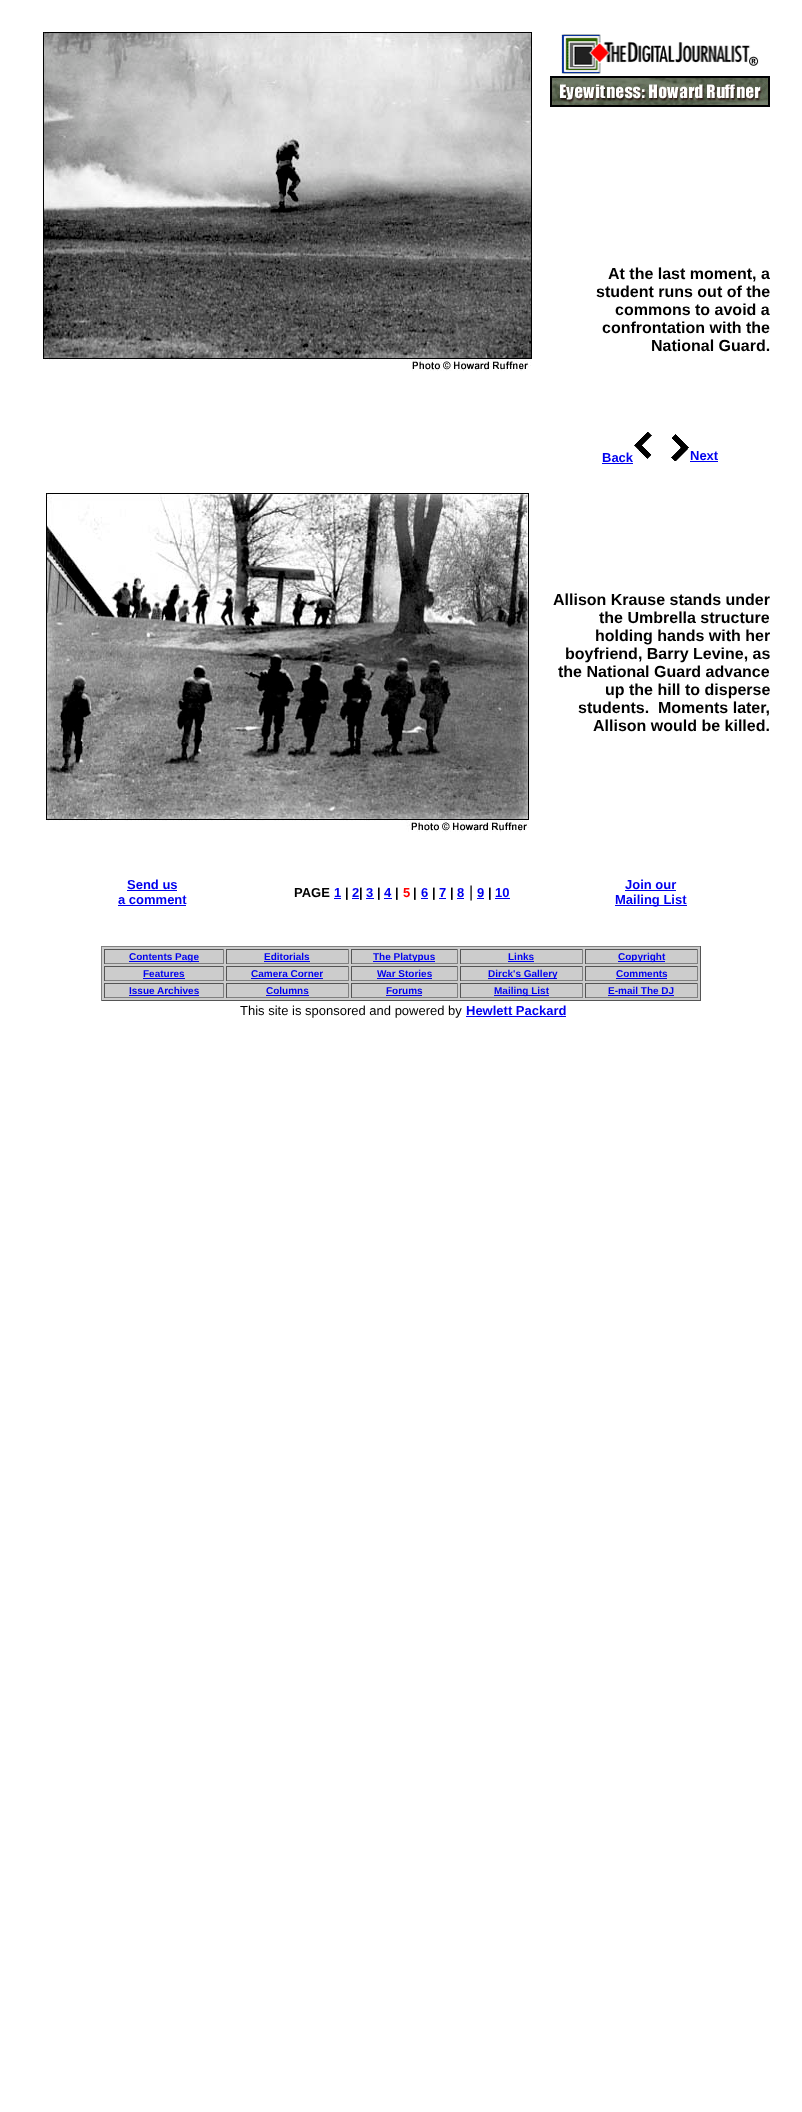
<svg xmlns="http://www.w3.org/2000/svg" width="802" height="2112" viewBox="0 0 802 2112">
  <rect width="100%" height="100%" fill="#ffffff"/>
  <image x="43" y="32" width="489" height="339" href="img1.png"/>
  <image x="561" y="34" width="198" height="40" href="img2.png"/>
  <image x="550" y="76" width="220" height="31" href="img3.png"/>
  <text x="608" y="279" font-family="Liberation Sans" font-size="16" font-weight="bold" fill="#000000">At the last moment, a</text>
  <text x="596" y="297" font-family="Liberation Sans" font-size="16" font-weight="bold" fill="#000000">student runs out of the</text>
  <text x="615" y="315" font-family="Liberation Sans" font-size="16" font-weight="bold" fill="#000000">commons to avoid a</text>
  <text x="602" y="333" font-family="Liberation Sans" font-size="16" font-weight="bold" fill="#000000">confrontation with the</text>
  <text x="651" y="351" font-family="Liberation Sans" font-size="16" font-weight="bold" fill="#000000">National Guard.</text>
  <text x="602" y="462" font-family="Liberation Sans" font-size="13" font-weight="bold" fill="#0000ee">Back</text>
  <rect x="602" y="463" width="31" height="1" fill="#0000ee"/>
  <image x="634" y="432" width="18" height="27" href="img4.png"/>
  <image x="671" y="434" width="18" height="27" href="img5.png"/>
  <text x="690" y="460" font-family="Liberation Sans" font-size="13" font-weight="bold" fill="#0000ee">Next</text>
  <rect x="690" y="461" width="28" height="1" fill="#0000ee"/>
  <image x="46" y="493" width="483" height="339" href="img6.png"/>
  <text x="553" y="605" font-family="Liberation Sans" font-size="16" font-weight="bold" fill="#000000">Allison Krause stands under</text>
  <text x="599" y="623" font-family="Liberation Sans" font-size="16" font-weight="bold" fill="#000000">the Umbrella structure</text>
  <text x="595" y="641" font-family="Liberation Sans" font-size="16" font-weight="bold" fill="#000000">holding hands with her</text>
  <text x="565" y="659" font-family="Liberation Sans" font-size="16" font-weight="bold" fill="#000000">boyfriend, Barry Levine, as</text>
  <text x="558" y="677" font-family="Liberation Sans" font-size="16" font-weight="bold" fill="#000000">the National Guard advance</text>
  <text x="605" y="695" font-family="Liberation Sans" font-size="16" font-weight="bold" fill="#000000">up the hill to disperse</text>
  <text x="578" y="713" font-family="Liberation Sans" font-size="16" font-weight="bold" fill="#000000" xml:space="preserve">students.  Moments later,</text>
  <text x="593" y="731" font-family="Liberation Sans" font-size="16" font-weight="bold" fill="#000000">Allison would be killed.</text>
  <text x="127" y="889" font-family="Liberation Sans" font-size="13" font-weight="bold" fill="#0000ee">Send us</text>
  <rect x="127" y="890" width="50" height="1" fill="#0000ee"/>
  <text x="118" y="904" font-family="Liberation Sans" font-size="13" font-weight="bold" fill="#0000ee">a comment</text>
  <rect x="118" y="905" width="68" height="1" fill="#0000ee"/>
  <text x="294" y="897" font-family="Liberation Sans" font-size="13" font-weight="bold" fill="#000000">PAGE</text>
  <text x="334" y="897" font-family="Liberation Sans" font-size="13" font-weight="bold" fill="#0000ee">1</text>
  <rect x="334" y="898" width="7" height="1" fill="#0000ee"/>
  <text x="345" y="897" font-family="Liberation Sans" font-size="13" font-weight="bold" fill="#000000">|</text>
  <text x="352" y="897" font-family="Liberation Sans" font-size="13" font-weight="bold" fill="#0000ee">2</text>
  <text x="359" y="897" font-family="Liberation Sans" font-size="13" font-weight="bold" fill="#000000">|</text>
  <rect x="352" y="898" width="7" height="1" fill="#0000ee"/>
  <text x="366" y="897" font-family="Liberation Sans" font-size="13" font-weight="bold" fill="#0000ee">3</text>
  <rect x="366" y="898" width="8" height="1" fill="#0000ee"/>
  <text x="377" y="897" font-family="Liberation Sans" font-size="13" font-weight="bold" fill="#000000">|</text>
  <text x="384" y="897" font-family="Liberation Sans" font-size="13" font-weight="bold" fill="#0000ee">4</text>
  <rect x="384" y="898" width="8" height="1" fill="#0000ee"/>
  <text x="395" y="897" font-family="Liberation Sans" font-size="13" font-weight="bold" fill="#000000">|</text>
  <text x="403" y="897" font-family="Liberation Sans" font-size="13" font-weight="bold" fill="#ff0000">5</text>
  <text x="413" y="897" font-family="Liberation Sans" font-size="13" font-weight="bold" fill="#000000">|</text>
  <text x="421" y="897" font-family="Liberation Sans" font-size="13" font-weight="bold" fill="#0000ee">6</text>
  <rect x="421" y="898" width="7" height="1" fill="#0000ee"/>
  <text x="432" y="897" font-family="Liberation Sans" font-size="13" font-weight="bold" fill="#000000">|</text>
  <text x="439" y="897" font-family="Liberation Sans" font-size="13" font-weight="bold" fill="#0000ee">7</text>
  <rect x="439" y="898" width="7" height="1" fill="#0000ee"/>
  <text x="450" y="897" font-family="Liberation Sans" font-size="13" font-weight="bold" fill="#000000">|</text>
  <text x="457" y="897" font-family="Liberation Sans" font-size="13" font-weight="bold" fill="#0000ee">8</text>
  <rect x="457" y="898" width="7" height="1" fill="#0000ee"/>
  <text x="469" y="897" font-family="Liberation Sans" font-size="16" fill="#000000">|</text>
  <text x="477" y="897" font-family="Liberation Sans" font-size="13" font-weight="bold" fill="#0000ee">9</text>
  <rect x="477" y="898" width="7" height="1" fill="#0000ee"/>
  <text x="488" y="897" font-family="Liberation Sans" font-size="13" font-weight="bold" fill="#000000">|</text>
  <text x="495" y="897" font-family="Liberation Sans" font-size="13" font-weight="bold" fill="#0000ee">10</text>
  <rect x="495" y="898" width="15" height="1" fill="#0000ee"/>
  <text x="625" y="889" font-family="Liberation Sans" font-size="13" font-weight="bold" fill="#0000ee">Join our</text>
  <rect x="625" y="890" width="51" height="1" fill="#0000ee"/>
  <rect x="615" y="905" width="72" height="1" fill="#0000ee"/>
  <text x="615" y="904" font-family="Liberation Sans" font-size="13" font-weight="bold" fill="#0000ee">Mailing List</text>
  <rect x="102" y="947" width="598" height="53" fill="#cccccc"/>
  <rect x="101" y="946" width="600" height="1" fill="#808080"/>
  <rect x="700" y="946" width="1" height="55" fill="#555555"/>
  <rect x="101" y="1000" width="600" height="1" fill="#555555"/>
  <rect x="101" y="946" width="1" height="55" fill="#808080"/>
  <rect x="104" y="949" width="120" height="1" fill="#555555"/>
  <rect x="223" y="949" width="1" height="15" fill="#808080"/>
  <rect x="104" y="963" width="120" height="1" fill="#808080"/>
  <rect x="104" y="949" width="1" height="15" fill="#555555"/>
  <rect x="129" y="961" width="70" height="1" fill="#0000ee"/>
  <text x="129" y="960" font-family="Liberation Sans" font-size="10" font-weight="bold" fill="#0000ee">Contents Page</text>
  <rect x="226" y="949" width="123" height="1" fill="#555555"/>
  <rect x="348" y="949" width="1" height="15" fill="#808080"/>
  <rect x="226" y="963" width="123" height="1" fill="#808080"/>
  <rect x="226" y="949" width="1" height="15" fill="#555555"/>
  <text x="264" y="960" font-family="Liberation Sans" font-size="10" font-weight="bold" fill="#0000ee">Editorials</text>
  <rect x="264" y="961" width="46" height="1" fill="#0000ee"/>
  <rect x="351" y="949" width="107" height="1" fill="#555555"/>
  <rect x="457" y="949" width="1" height="15" fill="#808080"/>
  <rect x="351" y="963" width="107" height="1" fill="#808080"/>
  <rect x="351" y="949" width="1" height="15" fill="#555555"/>
  <rect x="373" y="961" width="62" height="1" fill="#0000ee"/>
  <text x="373" y="960" font-family="Liberation Sans" font-size="10" font-weight="bold" fill="#0000ee">The Platypus</text>
  <rect x="460" y="949" width="123" height="1" fill="#555555"/>
  <rect x="582" y="949" width="1" height="15" fill="#808080"/>
  <rect x="460" y="963" width="123" height="1" fill="#808080"/>
  <rect x="460" y="949" width="1" height="15" fill="#555555"/>
  <text x="508" y="960" font-family="Liberation Sans" font-size="10" font-weight="bold" fill="#0000ee">Links</text>
  <rect x="508" y="961" width="26" height="1" fill="#0000ee"/>
  <rect x="585" y="949" width="113" height="1" fill="#555555"/>
  <rect x="697" y="949" width="1" height="15" fill="#808080"/>
  <rect x="585" y="963" width="113" height="1" fill="#808080"/>
  <rect x="585" y="949" width="1" height="15" fill="#555555"/>
  <rect x="618" y="961" width="47" height="1" fill="#0000ee"/>
  <text x="618" y="960" font-family="Liberation Sans" font-size="10" font-weight="bold" fill="#0000ee">Copyright</text>
  <rect x="104" y="966" width="120" height="1" fill="#555555"/>
  <rect x="223" y="966" width="1" height="15" fill="#808080"/>
  <rect x="104" y="980" width="120" height="1" fill="#808080"/>
  <rect x="104" y="966" width="1" height="15" fill="#555555"/>
  <text x="143" y="977" font-family="Liberation Sans" font-size="10" font-weight="bold" fill="#0000ee">Features</text>
  <rect x="143" y="978" width="42" height="1" fill="#0000ee"/>
  <rect x="226" y="966" width="123" height="1" fill="#555555"/>
  <rect x="348" y="966" width="1" height="15" fill="#808080"/>
  <rect x="226" y="980" width="123" height="1" fill="#808080"/>
  <rect x="226" y="966" width="1" height="15" fill="#555555"/>
  <text x="251" y="977" font-family="Liberation Sans" font-size="10" font-weight="bold" fill="#0000ee">Camera Corner</text>
  <rect x="251" y="978" width="72" height="1" fill="#0000ee"/>
  <rect x="351" y="966" width="107" height="1" fill="#555555"/>
  <rect x="457" y="966" width="1" height="15" fill="#808080"/>
  <rect x="351" y="980" width="107" height="1" fill="#808080"/>
  <rect x="351" y="966" width="1" height="15" fill="#555555"/>
  <text x="377" y="977" font-family="Liberation Sans" font-size="10" font-weight="bold" fill="#0000ee">War Stories</text>
  <rect x="377" y="978" width="55" height="1" fill="#0000ee"/>
  <rect x="460" y="966" width="123" height="1" fill="#555555"/>
  <rect x="582" y="966" width="1" height="15" fill="#808080"/>
  <rect x="460" y="980" width="123" height="1" fill="#808080"/>
  <rect x="460" y="966" width="1" height="15" fill="#555555"/>
  <rect x="488" y="978" width="69" height="1" fill="#0000ee"/>
  <text x="488" y="977" font-family="Liberation Sans" font-size="10" font-weight="bold" fill="#0000ee">Dirck's Gallery</text>
  <rect x="585" y="966" width="113" height="1" fill="#555555"/>
  <rect x="697" y="966" width="1" height="15" fill="#808080"/>
  <rect x="585" y="980" width="113" height="1" fill="#808080"/>
  <rect x="585" y="966" width="1" height="15" fill="#555555"/>
  <text x="616" y="977" font-family="Liberation Sans" font-size="10" font-weight="bold" fill="#0000ee">Comments</text>
  <rect x="616" y="978" width="51" height="1" fill="#0000ee"/>
  <rect x="104" y="983" width="120" height="1" fill="#555555"/>
  <rect x="223" y="983" width="1" height="15" fill="#808080"/>
  <rect x="104" y="997" width="120" height="1" fill="#808080"/>
  <rect x="104" y="983" width="1" height="15" fill="#555555"/>
  <text x="129" y="994" font-family="Liberation Sans" font-size="10" font-weight="bold" fill="#0000ee">Issue Archives</text>
  <rect x="129" y="995" width="70" height="1" fill="#0000ee"/>
  <rect x="226" y="983" width="123" height="1" fill="#555555"/>
  <rect x="348" y="983" width="1" height="15" fill="#808080"/>
  <rect x="226" y="997" width="123" height="1" fill="#808080"/>
  <rect x="226" y="983" width="1" height="15" fill="#555555"/>
  <text x="266" y="994" font-family="Liberation Sans" font-size="10" font-weight="bold" fill="#0000ee">Columns</text>
  <rect x="266" y="995" width="43" height="1" fill="#0000ee"/>
  <rect x="351" y="983" width="107" height="1" fill="#555555"/>
  <rect x="457" y="983" width="1" height="15" fill="#808080"/>
  <rect x="351" y="997" width="107" height="1" fill="#808080"/>
  <rect x="351" y="983" width="1" height="15" fill="#555555"/>
  <text x="386" y="994" font-family="Liberation Sans" font-size="10" font-weight="bold" fill="#0000ee">Forums</text>
  <rect x="386" y="995" width="36" height="1" fill="#0000ee"/>
  <rect x="460" y="983" width="123" height="1" fill="#555555"/>
  <rect x="582" y="983" width="1" height="15" fill="#808080"/>
  <rect x="460" y="997" width="123" height="1" fill="#808080"/>
  <rect x="460" y="983" width="1" height="15" fill="#555555"/>
  <rect x="494" y="995" width="55" height="1" fill="#0000ee"/>
  <text x="494" y="994" font-family="Liberation Sans" font-size="10" font-weight="bold" fill="#0000ee">Mailing List</text>
  <rect x="585" y="983" width="113" height="1" fill="#555555"/>
  <rect x="697" y="983" width="1" height="15" fill="#808080"/>
  <rect x="585" y="997" width="113" height="1" fill="#808080"/>
  <rect x="585" y="983" width="1" height="15" fill="#555555"/>
  <text x="608" y="994" font-family="Liberation Sans" font-size="10" font-weight="bold" fill="#0000ee">E-mail The DJ</text>
  <rect x="608" y="995" width="66" height="1" fill="#0000ee"/>
  <text x="240" y="1015" font-family="Liberation Sans" font-size="13" fill="#000000">This site is sponsored and powered by</text>
  <text x="466" y="1015" font-family="Liberation Sans" font-size="13" font-weight="bold" fill="#0000ee">Hewlett Packard</text>
  <rect x="466" y="1016" width="100" height="1" fill="#0000ee"/>
</svg>
